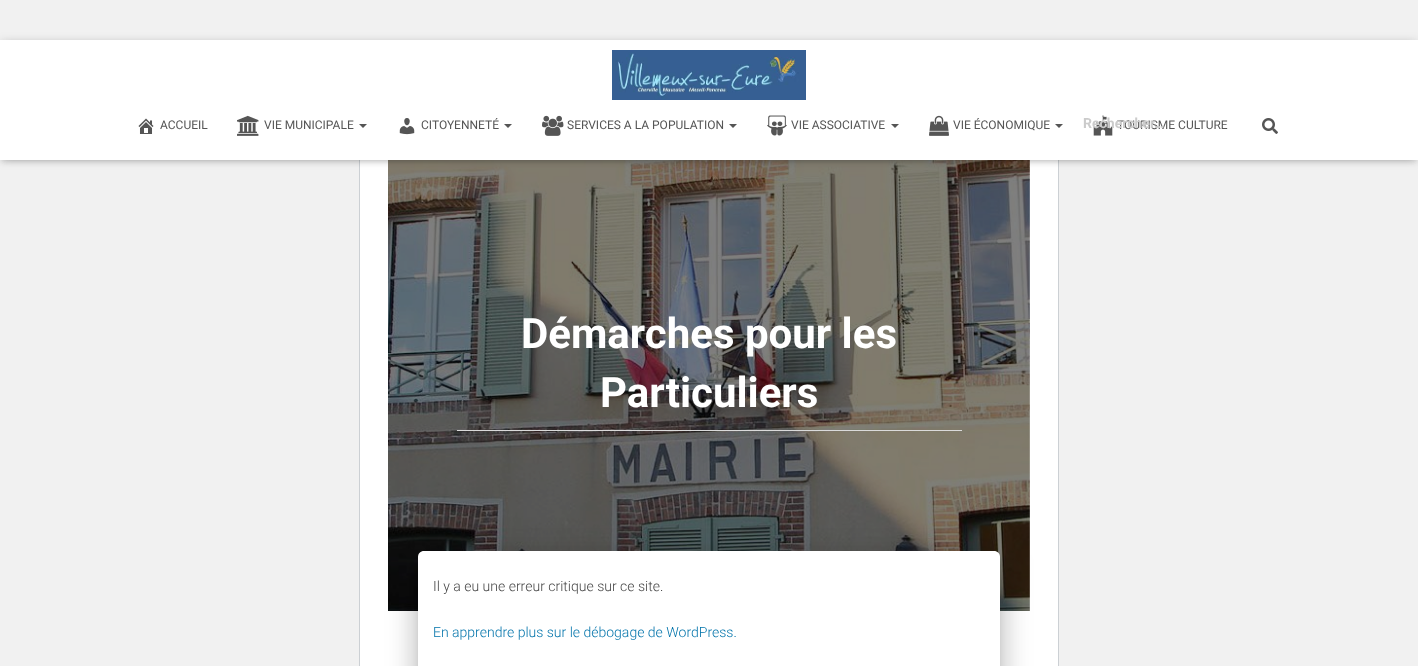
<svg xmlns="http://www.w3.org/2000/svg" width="1418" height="666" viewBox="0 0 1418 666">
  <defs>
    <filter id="blur1" x="-50%" y="-200%" width="200%" height="500%"><feGaussianBlur stdDeviation="2.5"/></filter>
    <filter id="blur2" x="-50%" y="-200%" width="200%" height="500%"><feGaussianBlur stdDeviation="5"/></filter>
    <filter id="blur3" x="-50%" y="-200%" width="200%" height="500%"><feGaussianBlur stdDeviation="15"/></filter>
    <filter id="blur4" x="-50%" y="-200%" width="200%" height="500%"><feGaussianBlur stdDeviation="12"/></filter>
  </defs>
  <rect width="100%" height="100%" fill="#f1f1f1"/>
  <rect x="360" y="160" width="698" height="506" fill="#ffffff"/>
  <rect x="359.5" y="50.5" width="699" height="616" fill="none" stroke="#ccd0d4"/>
  <image x="388" y="160" width="642" height="451" href="img10.png"/>
  <rect x="2" y="46" width="1414" height="116" fill="#000000" fill-opacity="0.1" filter="url(#blur1)"/>
  <rect x="0" y="41" width="1418" height="120" fill="#000000" fill-opacity="0.12" filter="url(#blur2)"/>
  <rect x="6" y="47" width="1406" height="108" fill="#000000" fill-opacity="0.42" filter="url(#blur2)"/>
  <rect x="0" y="40" width="1418" height="120" fill="#ffffff"/>
  <image x="612" y="50" width="194" height="50" href="img1.png"/>
  <image x="138" y="118" width="16" height="16" href="img2.png"/>
  <text x="160" y="129" font-family="Roboto" font-size="12" fill="#555555">ACCUEIL</text>
  <image x="237" y="115" width="22" height="21" href="img3.png"/>
  <text x="264" y="129" font-family="Roboto" font-size="12" fill="#555555">VIE MUNICIPALE</text>
  <path d="M359 124H367L363 128Z" fill="#555555"/>
  <image x="399" y="118" width="16" height="17" href="img4.png"/>
  <text x="421" y="129" font-family="Roboto" font-size="12" fill="#555555">CITOYENNETÉ</text>
  <path d="M504 124H512L508 128Z" fill="#555555"/>
  <image x="542" y="115" width="22" height="21" href="img5.png"/>
  <text x="567" y="129" font-family="Roboto" font-size="12" fill="#555555">SERVICES A LA POPULATION</text>
  <path d="M729 124H737L733 128Z" fill="#555555"/>
  <image x="767" y="115" width="20" height="21" href="img6.png"/>
  <text x="791" y="129" font-family="Roboto" font-size="12" fill="#555555">VIE ASSOCIATIVE</text>
  <path d="M891 124H899L895 128Z" fill="#555555"/>
  <image x="929" y="115" width="20" height="21" href="img7.png"/>
  <text x="953" y="129" font-family="Roboto" font-size="12" fill="#555555">VIE ÉCONOMIQUE</text>
  <path d="M1055 124H1063L1059 128Z" fill="#555555"/>
  <image x="1093" y="115" width="20" height="21" href="img9.png"/>
  <text x="1117" y="129" font-family="Roboto" font-size="12" fill="#555555">TOURISME CULTURE</text>
  <text x="1083" y="128" font-family="Roboto" font-size="14" font-weight="bold" fill="#cbcbcb">Rechercher…</text>
  <image x="1262" y="118" width="16" height="16" href="img8.png"/>
  <rect x="457" y="430" width="505" height="1" fill="#dadada"/>
  <text x="521" y="348" font-family="Roboto" font-size="42" font-weight="bold" fill="#ffffff">Démarches pour les</text>
  <text x="600" y="407" font-family="Roboto" font-size="42" font-weight="bold" fill="#ffffff">Particuliers</text>
  <rect x="423" y="564" width="572" height="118" rx="1" fill="#000000" fill-opacity="0.2" filter="url(#blur2)"/>
  <rect x="413" y="552" width="592" height="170" rx="11" fill="#000000" fill-opacity="0.12" filter="url(#blur3)"/>
  <rect x="416" y="565" width="586" height="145" rx="8" fill="#000000" fill-opacity="0.14" filter="url(#blur4)"/>
  <path d="M424 551H994C997.5 551 1000 553.5 1000 557V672H418V557C418 553.5 420.5 551 424 551Z" fill="#ffffff"/>
  <text x="433" y="591" font-family="Roboto" font-size="14" font-weight="300" fill="#444444">Il y a eu une erreur critique sur ce site.</text>
  <text x="433" y="637" font-family="Roboto" font-size="14" font-weight="300" fill="#0073aa">En apprendre plus sur le débogage de WordPress.</text>
</svg>
